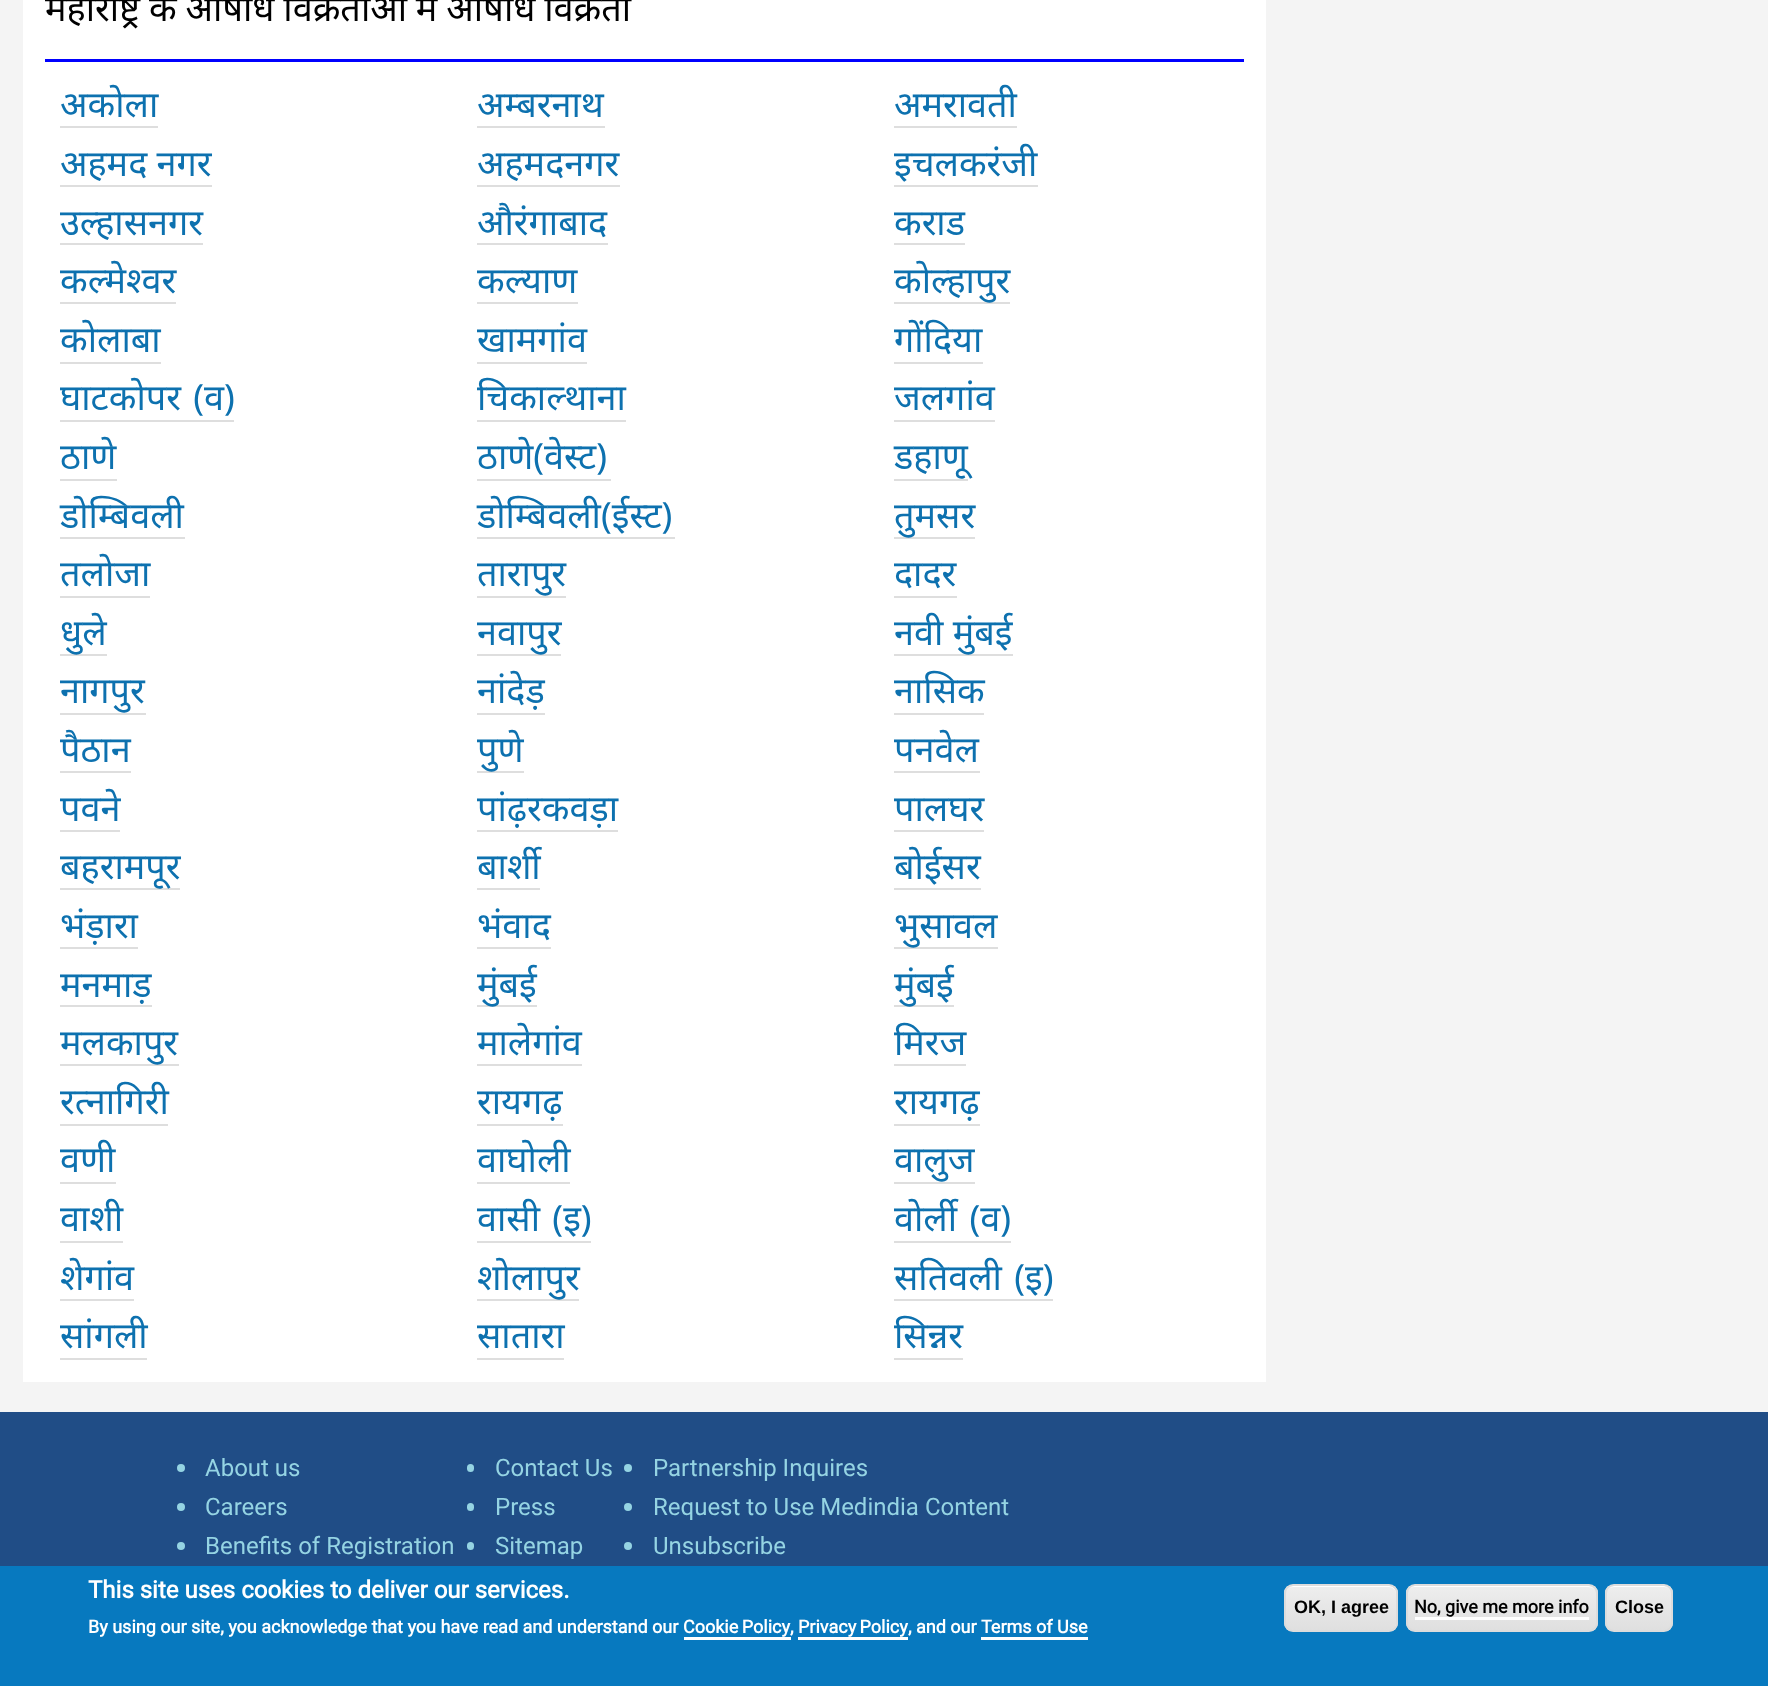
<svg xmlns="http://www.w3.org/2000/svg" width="1768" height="1686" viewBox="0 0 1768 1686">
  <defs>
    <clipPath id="clip1"><rect x="1284" y="1584" width="114" height="48" rx="9"/></clipPath>
    <linearGradient id="g1" gradientUnits="userSpaceOnUse" x1="1286" y1="1586" x2="1286" y2="1631"><stop offset="0.05" stop-color="#ededed"/><stop offset="1" stop-color="#dfdfdf"/></linearGradient>
    <clipPath id="clip2"><rect x="1406" y="1584" width="192" height="48" rx="9"/></clipPath>
    <linearGradient id="g2" gradientUnits="userSpaceOnUse" x1="1407" y1="1586" x2="1407" y2="1631"><stop offset="0.05" stop-color="#ededed"/><stop offset="1" stop-color="#dfdfdf"/></linearGradient>
    <clipPath id="clip3"><rect x="1605" y="1584" width="68" height="48" rx="9"/></clipPath>
    <linearGradient id="g3" gradientUnits="userSpaceOnUse" x1="1607" y1="1586" x2="1607" y2="1631"><stop offset="0.05" stop-color="#ededed"/><stop offset="1" stop-color="#dfdfdf"/></linearGradient>
  </defs>
  <rect width="100%" height="100%" fill="#f4f4f4"/>
  <rect x="23" y="0" width="1243" height="1382" fill="#ffffff"/>
  <text x="45" y="21" word-spacing="-0.5" font-family="Noto Sans" font-size="36" fill="#000000">महाराष्ट्र के औषधि विक्रेताओं में औषधि विक्रेता</text>
  <rect x="45" y="59" width="1199" height="3" fill="#0000ff"/>
  <text x="60" y="117" font-family="Noto Sans" font-size="36" fill="#0d71af">अकोला</text>
  <rect x="60" y="126" width="98" height="2" fill="#dedede"/>
  <text x="477" y="117" font-family="Noto Sans" font-size="36" fill="#0d71af">अम्बरनाथ</text>
  <rect x="477" y="126" width="128" height="2" fill="#dedede"/>
  <text x="894" y="117" font-family="Noto Sans" font-size="36" fill="#0d71af">अमरावती</text>
  <rect x="894" y="126" width="123" height="2" fill="#dedede"/>
  <text x="60" y="176" font-family="Noto Sans" font-size="36" fill="#0d71af">अहमद नगर</text>
  <rect x="60" y="185" width="152" height="2" fill="#dedede"/>
  <text x="477" y="176" font-family="Noto Sans" font-size="36" fill="#0d71af">अहमदनगर</text>
  <rect x="477" y="185" width="143" height="2" fill="#dedede"/>
  <text x="894" y="176" font-family="Noto Sans" font-size="36" fill="#0d71af">इचलकरंजी</text>
  <rect x="894" y="185" width="144" height="2" fill="#dedede"/>
  <text x="60" y="235" font-family="Noto Sans" font-size="36" fill="#0d71af">उल्हासनगर</text>
  <rect x="60" y="243" width="143" height="2" fill="#dedede"/>
  <text x="477" y="235" font-family="Noto Sans" font-size="36" fill="#0d71af">औरंगाबाद</text>
  <rect x="477" y="243" width="131" height="2" fill="#dedede"/>
  <text x="894" y="235" font-family="Noto Sans" font-size="36" fill="#0d71af">कराड</text>
  <rect x="894" y="243" width="71" height="2" fill="#dedede"/>
  <text x="60" y="293" font-family="Noto Sans" font-size="36" fill="#0d71af">कल्मेश्वर</text>
  <rect x="60" y="302" width="116" height="2" fill="#dedede"/>
  <text x="477" y="293" font-family="Noto Sans" font-size="36" fill="#0d71af">कल्याण</text>
  <rect x="477" y="302" width="101" height="2" fill="#dedede"/>
  <rect x="894" y="302" width="116" height="2" fill="#dedede"/>
  <text x="894" y="293" font-family="Noto Sans" font-size="36" fill="#0d71af">कोल्हापुर</text>
  <text x="60" y="352" font-family="Noto Sans" font-size="36" fill="#0d71af">कोलाबा</text>
  <rect x="60" y="362" width="101" height="2" fill="#dedede"/>
  <text x="477" y="352" font-family="Noto Sans" font-size="36" fill="#0d71af">खामगांव</text>
  <rect x="477" y="362" width="110" height="2" fill="#dedede"/>
  <text x="894" y="352" font-family="Noto Sans" font-size="36" fill="#0d71af">गोंदिया</text>
  <rect x="894" y="362" width="89" height="2" fill="#dedede"/>
  <text x="60" y="410" word-spacing="3" font-family="Noto Sans" font-size="36" fill="#0d71af">घाटकोपर (व)</text>
  <rect x="60" y="420" width="174" height="2" fill="#dedede"/>
  <text x="477" y="410" font-family="Noto Sans" font-size="36" fill="#0d71af">चिकाल्थाना</text>
  <rect x="477" y="420" width="149" height="2" fill="#dedede"/>
  <text x="894" y="410" font-family="Noto Sans" font-size="36" fill="#0d71af">जलगांव</text>
  <rect x="894" y="420" width="101" height="2" fill="#dedede"/>
  <text x="60" y="469" font-family="Noto Sans" font-size="36" fill="#0d71af">ठाणे</text>
  <rect x="60" y="479" width="57" height="2" fill="#dedede"/>
  <text x="477" y="469" font-family="Noto Sans" font-size="36" fill="#0d71af">ठाणे(वेस्ट)</text>
  <rect x="477" y="479" width="134" height="2" fill="#dedede"/>
  <text x="894" y="469" font-family="Noto Sans" font-size="36" fill="#0d71af">डहाणू</text>
  <rect x="894" y="479" width="74" height="2" fill="#dedede"/>
  <text x="60" y="528" font-family="Noto Sans" font-size="36" fill="#0d71af">डोम्बिवली</text>
  <rect x="60" y="537" width="125" height="2" fill="#dedede"/>
  <text x="477" y="528" font-family="Noto Sans" font-size="36" fill="#0d71af">डोम्बिवली(ईस्ट)</text>
  <rect x="477" y="537" width="198" height="2" fill="#dedede"/>
  <rect x="894" y="537" width="81" height="2" fill="#dedede"/>
  <text x="894" y="528" font-family="Noto Sans" font-size="36" fill="#0d71af">तुमसर</text>
  <text x="60" y="586" font-family="Noto Sans" font-size="36" fill="#0d71af">तलोजा</text>
  <rect x="60" y="596" width="90" height="2" fill="#dedede"/>
  <text x="477" y="586" font-family="Noto Sans" font-size="36" fill="#0d71af">तारापुर</text>
  <rect x="477" y="596" width="89" height="2" fill="#dedede"/>
  <text x="894" y="586" font-family="Noto Sans" font-size="36" fill="#0d71af">दादर</text>
  <rect x="894" y="596" width="63" height="2" fill="#dedede"/>
  <rect x="60" y="654" width="47" height="2" fill="#dedede"/>
  <text x="60" y="645" font-family="Noto Sans" font-size="36" fill="#0d71af">धुले</text>
  <rect x="477" y="654" width="84" height="2" fill="#dedede"/>
  <text x="477" y="645" font-family="Noto Sans" font-size="36" fill="#0d71af">नवापुर</text>
  <rect x="894" y="654" width="119" height="2" fill="#dedede"/>
  <text x="894" y="645" font-family="Noto Sans" font-size="36" fill="#0d71af">नवी मुंबई</text>
  <text x="60" y="703" font-family="Noto Sans" font-size="36" fill="#0d71af">नागपुर</text>
  <rect x="60" y="713" width="86" height="2" fill="#dedede"/>
  <text x="477" y="703" font-family="Noto Sans" font-size="36" fill="#0d71af">नांदेड़</text>
  <rect x="477" y="713" width="68" height="2" fill="#dedede"/>
  <text x="894" y="703" font-family="Noto Sans" font-size="36" fill="#0d71af">नासिक</text>
  <rect x="894" y="713" width="90" height="2" fill="#dedede"/>
  <text x="60" y="762" font-family="Noto Sans" font-size="36" fill="#0d71af">पैठान</text>
  <rect x="60" y="771" width="71" height="2" fill="#dedede"/>
  <rect x="477" y="771" width="47" height="2" fill="#dedede"/>
  <text x="477" y="762" font-family="Noto Sans" font-size="36" fill="#0d71af">पुणे</text>
  <text x="894" y="762" font-family="Noto Sans" font-size="36" fill="#0d71af">पनवेल</text>
  <rect x="894" y="771" width="86" height="2" fill="#dedede"/>
  <text x="60" y="821" font-family="Noto Sans" font-size="36" fill="#0d71af">पवने</text>
  <rect x="60" y="830" width="60" height="2" fill="#dedede"/>
  <text x="477" y="821" font-family="Noto Sans" font-size="36" fill="#0d71af">पांढ़रकवड़ा</text>
  <rect x="477" y="830" width="141" height="2" fill="#dedede"/>
  <text x="894" y="821" font-family="Noto Sans" font-size="36" fill="#0d71af">पालघर</text>
  <rect x="894" y="830" width="90" height="2" fill="#dedede"/>
  <rect x="60" y="888" width="120" height="2" fill="#dedede"/>
  <text x="60" y="879" font-family="Noto Sans" font-size="36" fill="#0d71af">बहरामपूर</text>
  <text x="477" y="879" font-family="Noto Sans" font-size="36" fill="#0d71af">बार्शी</text>
  <rect x="477" y="888" width="63" height="2" fill="#dedede"/>
  <text x="894" y="879" font-family="Noto Sans" font-size="36" fill="#0d71af">बोईसर</text>
  <rect x="894" y="888" width="87" height="2" fill="#dedede"/>
  <text x="60" y="938" font-family="Noto Sans" font-size="36" fill="#0d71af">भंड़ारा</text>
  <rect x="60" y="947" width="78" height="2" fill="#dedede"/>
  <text x="477" y="938" font-family="Noto Sans" font-size="36" fill="#0d71af">भंवाद</text>
  <rect x="477" y="947" width="74" height="2" fill="#dedede"/>
  <rect x="894" y="947" width="104" height="2" fill="#dedede"/>
  <text x="894" y="938" font-family="Noto Sans" font-size="36" fill="#0d71af">भुसावल</text>
  <text x="60" y="997" font-family="Noto Sans" font-size="36" fill="#0d71af">मनमाड़</text>
  <rect x="60" y="1005" width="92" height="2" fill="#dedede"/>
  <rect x="477" y="1005" width="60" height="2" fill="#dedede"/>
  <text x="477" y="997" font-family="Noto Sans" font-size="36" fill="#0d71af">मुंबई</text>
  <rect x="894" y="1005" width="60" height="2" fill="#dedede"/>
  <text x="894" y="997" font-family="Noto Sans" font-size="36" fill="#0d71af">मुंबई</text>
  <rect x="60" y="1064" width="119" height="2" fill="#dedede"/>
  <text x="60" y="1055" font-family="Noto Sans" font-size="36" fill="#0d71af">मलकापुर</text>
  <text x="477" y="1055" font-family="Noto Sans" font-size="36" fill="#0d71af">मालेगांव</text>
  <rect x="477" y="1064" width="105" height="2" fill="#dedede"/>
  <text x="894" y="1055" font-family="Noto Sans" font-size="36" fill="#0d71af">मिरज</text>
  <rect x="894" y="1064" width="72" height="2" fill="#dedede"/>
  <text x="60" y="1114" font-family="Noto Sans" font-size="36" fill="#0d71af">रत्नागिरी</text>
  <rect x="60" y="1124" width="108" height="2" fill="#dedede"/>
  <text x="477" y="1114" font-family="Noto Sans" font-size="36" fill="#0d71af">रायगढ़</text>
  <rect x="477" y="1124" width="86" height="2" fill="#dedede"/>
  <text x="894" y="1114" font-family="Noto Sans" font-size="36" fill="#0d71af">रायगढ़</text>
  <rect x="894" y="1124" width="86" height="2" fill="#dedede"/>
  <text x="60" y="1172" font-family="Noto Sans" font-size="36" fill="#0d71af">वणी</text>
  <rect x="60" y="1182" width="56" height="2" fill="#dedede"/>
  <text x="477" y="1172" font-family="Noto Sans" font-size="36" fill="#0d71af">वाघोली</text>
  <rect x="477" y="1182" width="93" height="2" fill="#dedede"/>
  <text x="894" y="1172" font-family="Noto Sans" font-size="36" fill="#0d71af">वालुज</text>
  <rect x="894" y="1182" width="81" height="2" fill="#dedede"/>
  <text x="60" y="1231" font-family="Noto Sans" font-size="36" fill="#0d71af">वाशी</text>
  <rect x="60" y="1241" width="63" height="2" fill="#dedede"/>
  <text x="477" y="1231" word-spacing="3" font-family="Noto Sans" font-size="36" fill="#0d71af">वासी (इ)</text>
  <rect x="477" y="1241" width="114" height="2" fill="#dedede"/>
  <text x="894" y="1231" word-spacing="3" font-family="Noto Sans" font-size="36" fill="#0d71af">वोर्ली (व)</text>
  <rect x="894" y="1241" width="117" height="2" fill="#dedede"/>
  <text x="60" y="1290" font-family="Noto Sans" font-size="36" fill="#0d71af">शेगांव</text>
  <rect x="60" y="1299" width="74" height="2" fill="#dedede"/>
  <rect x="477" y="1299" width="102" height="2" fill="#dedede"/>
  <text x="477" y="1290" font-family="Noto Sans" font-size="36" fill="#0d71af">शोलापुर</text>
  <text x="894" y="1290" word-spacing="3" font-family="Noto Sans" font-size="36" fill="#0d71af">सतिवली (इ)</text>
  <rect x="894" y="1299" width="159" height="2" fill="#dedede"/>
  <text x="60" y="1348" font-family="Noto Sans" font-size="36" fill="#0d71af">सांगली</text>
  <rect x="60" y="1358" width="87" height="2" fill="#dedede"/>
  <text x="477" y="1348" font-family="Noto Sans" font-size="36" fill="#0d71af">सातारा</text>
  <rect x="477" y="1358" width="87" height="2" fill="#dedede"/>
  <text x="894" y="1348" font-family="Noto Sans" font-size="36" fill="#0d71af">सिन्नर</text>
  <rect x="894" y="1358" width="69" height="2" fill="#dedede"/>
  <rect x="0" y="1412" width="1768" height="154" fill="#204d86"/>
  <circle cx="181" cy="1468" r="4" fill="#95d4e3"/>
  <text x="205" y="1476" font-family="Roboto" font-size="24" fill="#95d4e3">About us</text>
  <circle cx="181" cy="1507" r="4" fill="#95d4e3"/>
  <text x="205" y="1515" font-family="Roboto" font-size="24" fill="#95d4e3">Careers</text>
  <circle cx="181" cy="1546" r="4" fill="#95d4e3"/>
  <text x="205" y="1554" font-family="Roboto" font-size="24" fill="#95d4e3">Benefits of Registration</text>
  <rect x="467" y="1464" width="7" height="8" rx="3.5" fill="#95d4e3"/>
  <text x="495" y="1476" font-family="Roboto" font-size="24" fill="#95d4e3">Contact Us</text>
  <rect x="467" y="1503" width="7" height="8" rx="3.5" fill="#95d4e3"/>
  <text x="495" y="1515" font-family="Roboto" font-size="24" fill="#95d4e3">Press</text>
  <rect x="467" y="1542" width="7" height="8" rx="3.5" fill="#95d4e3"/>
  <text x="495" y="1554" font-family="Roboto" font-size="24" fill="#95d4e3">Sitemap</text>
  <circle cx="628" cy="1468" r="4" fill="#95d4e3"/>
  <text x="653" y="1476" font-family="Roboto" font-size="24" fill="#95d4e3">Partnership Inquires</text>
  <circle cx="628" cy="1507" r="4" fill="#95d4e3"/>
  <text x="653" y="1515" font-family="Roboto" font-size="24" fill="#95d4e3">Request to Use Medindia Content</text>
  <circle cx="628" cy="1546" r="4" fill="#95d4e3"/>
  <text x="653" y="1554" font-family="Roboto" font-size="24" fill="#95d4e3">Unsubscribe</text>
  <rect x="0" y="1566" width="1768" height="120" fill="#0779bf"/>
  <text x="88" y="1598" font-family="Roboto" font-size="24" font-weight="bold" fill="#ffffff">This site uses cookies to deliver our services.</text>
  <text x="88" y="1633" font-family="Roboto" font-size="18" font-weight="bold" fill="#ffffff">By using our site, you acknowledge that you have read and understand our</text>
  <text x="683" y="1633" word-spacing="-1" font-family="Roboto" font-size="18" font-weight="bold" fill="#ffffff">Cookie Policy</text>
  <rect x="684" y="1637" width="107" height="3" fill="#ffffff"/>
  <text x="790" y="1633" font-family="Roboto" font-size="18" font-weight="bold" fill="#ffffff">,</text>
  <text x="798" y="1633" word-spacing="-1" font-family="Roboto" font-size="18" font-weight="bold" fill="#ffffff">Privacy Policy</text>
  <rect x="798" y="1637" width="110" height="3" fill="#ffffff"/>
  <text x="908" y="1633" font-family="Roboto" font-size="18" font-weight="bold" fill="#ffffff">, and our</text>
  <text x="981" y="1633" font-family="Roboto" font-size="18" font-weight="bold" fill="#ffffff">Terms of Use</text>
  <rect x="981" y="1637" width="107" height="3" fill="#ffffff"/>
  <g clip-path="url(#clip1)">
    <rect x="1284" y="1586" width="114" height="45" fill="url(#g1)"/>
  </g>
  <path d="M1293 1587H1389C1393 1587 1396 1590 1396 1594V1624L1395 1628C1396 1627 1397 1625 1397 1623V1594C1397 1590 1393 1586 1389 1586H1294C1290 1586 1286 1590 1286 1594C1286 1590 1289 1587 1293 1587Z" fill="#ffffff"/>
  <rect x="1285" y="1585" width="112" height="46" rx="8" fill="none" stroke="#dcdcdc" stroke-width="2"/>
  <text x="1294" y="1613" font-family="Liberation Sans" font-size="18" font-weight="bold" fill="#000000">OK, I agree</text>
  <g clip-path="url(#clip2)">
    <rect x="1406" y="1586" width="192" height="45" fill="url(#g2)"/>
  </g>
  <path d="M1414 1587H1588C1593 1587 1596 1590 1596 1594C1596 1590 1592 1586 1588 1586H1415C1411 1586 1407 1590 1407 1594C1407 1590 1410 1587 1414 1587Z" fill="#ffffff"/>
  <rect x="1407" y="1585" width="190" height="46" rx="8" fill="none" stroke="#dcdcdc" stroke-width="2"/>
  <text x="1414" y="1613" font-family="Roboto" font-size="18" font-weight="bold" fill="#000000">No, give me more info</text>
  <rect x="1415" y="1617" width="174" height="3" fill="#ffffff"/>
  <g clip-path="url(#clip3)">
    <rect x="1605" y="1586" width="68" height="45" fill="url(#g3)"/>
  </g>
  <path d="M1614 1587H1664C1668 1587 1671 1590 1671 1594C1671 1590 1667 1586 1663 1586H1615C1613 1586 1611 1587 1609 1588C1611 1588 1612 1587 1614 1587Z" fill="#ffffff"/>
  <rect x="1606" y="1585" width="66" height="46" rx="8" fill="none" stroke="#dcdcdc" stroke-width="2"/>
  <text x="1615" y="1613" font-family="Liberation Sans" font-size="18" font-weight="bold" fill="#000000">Close</text>
</svg>
